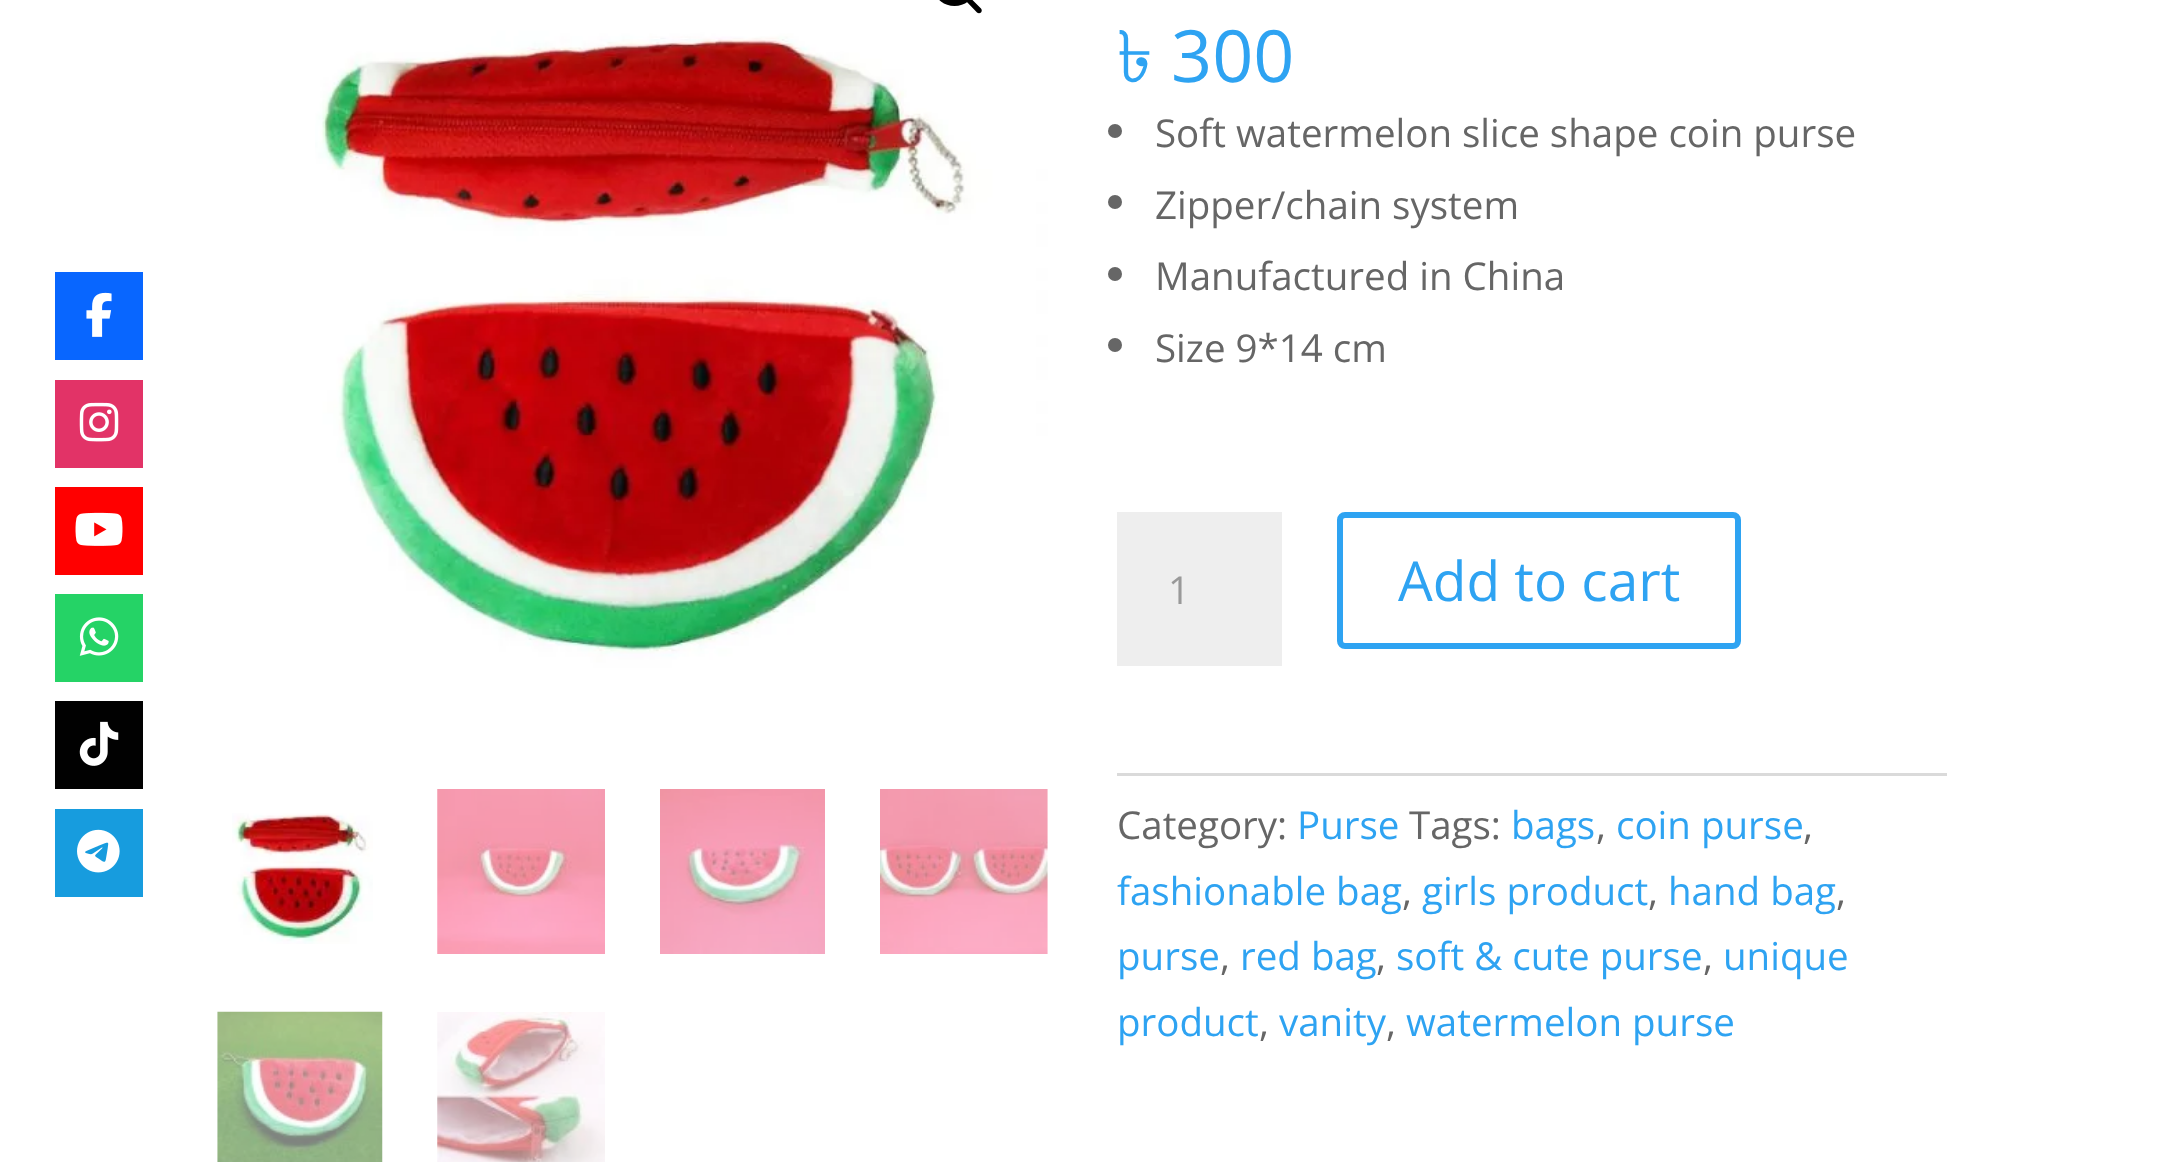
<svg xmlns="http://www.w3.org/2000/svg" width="2164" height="1162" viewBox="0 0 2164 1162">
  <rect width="100%" height="100%" fill="#ffffff"/>
  <rect x="55" y="272" width="88" height="88" fill="#0866ff"/>
  <image x="86" y="292" width="26" height="45" href="img1.png"/>
  <rect x="55" y="380" width="88" height="88" fill="#e23367"/>
  <image x="79" y="402" width="40" height="40" href="img2.png"/>
  <rect x="55" y="487" width="88" height="88" fill="#ff0000"/>
  <image x="75" y="512" width="48" height="34" href="img3.png"/>
  <rect x="55" y="594" width="88" height="88" fill="#25d366"/>
  <image x="79" y="617" width="40" height="39" href="img4.png"/>
  <rect x="55" y="701" width="88" height="88" fill="#010101"/>
  <image x="79" y="721" width="40" height="45" href="img5.png"/>
  <rect x="55" y="809" width="88" height="88" fill="#179cde"/>
  <image x="77" y="829" width="43" height="44" href="img6.png"/>
  <image x="315" y="0" width="733" height="734" href="img7.png"/>
  <rect x="938" y="-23" width="33" height="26" rx="16.5" fill="none" stroke="#000000" stroke-width="6"/>
  <path d="M965.5-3C966.5-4.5 968.5-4.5 969.5-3L981 8.5C982 9.5 982 11.5 981 12.5C980 13.5 978 13.5 977 12.5L965.5 .5C964.5-.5 964.5-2 965.5-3Z" fill="#000000"/>
  <image x="232" y="813" width="141" height="131" href="img8.png"/>
  <image x="437" y="789" width="168" height="165" href="img9.png"/>
  <image x="660" y="789" width="165" height="165" href="img10.png"/>
  <image x="880" y="789" width="168" height="165" href="img11.png"/>
  <image x="217" y="1011" width="166" height="151" href="img12.png"/>
  <image x="437" y="1012" width="168" height="150" href="img13.png"/>
  <text x="1117" y="82" font-family="Lohit Bengali" font-size="72" fill="#2ea3f2">৳</text>
  <text x="1171" y="82" font-family="Open Sans" font-size="72" fill="#2ea3f2">300</text>
  <circle cx="1115" cy="131" r="7" fill="#666666"/>
  <text x="1155" y="147" font-family="Open Sans" font-size="38.5" fill="#666666">Soft watermelon slice shape coin purse</text>
  <circle cx="1115" cy="202" r="7" fill="#666666"/>
  <text x="1155" y="219" font-family="Open Sans" font-size="38.5" fill="#666666">Zipper/chain system</text>
  <circle cx="1115" cy="274" r="7" fill="#666666"/>
  <text x="1155" y="290" font-family="Open Sans" font-size="38.5" fill="#666666">Manufactured in China</text>
  <circle cx="1115" cy="345" r="7" fill="#666666"/>
  <text x="1155" y="362" font-family="Open Sans" font-size="38.5" fill="#666666">Size 9*14 cm</text>
  <rect x="1117" y="512" width="165" height="154" fill="#eeeeee"/>
  <text x="1168" y="604" font-family="Open Sans" font-size="38.5" fill="#999999">1</text>
  <rect x="1340" y="515" width="398" height="131" rx="5" fill="none" stroke="#2ea3f2" stroke-width="6"/>
  <text x="1398" y="601" font-family="Open Sans" font-size="55" fill="#2ea3f2">Add to cart</text>
  <rect x="1117" y="773" width="830" height="3" fill="#dadada"/>
  <text x="1117" y="839" font-family="Open Sans" font-size="38.5" fill="#666666">Category:</text>
  <text x="1297" y="839" font-family="Open Sans" font-size="38.5" fill="#2ea3f2">Purse</text>
  <text x="1409" y="839" font-family="Open Sans" font-size="38.5" fill="#666666">Tags:</text>
  <text x="1511" y="839" font-family="Open Sans" font-size="38.5" fill="#2ea3f2">bags</text>
  <text x="1596" y="839" font-family="Open Sans" font-size="38.5" fill="#666666">,</text>
  <text x="1616" y="839" font-family="Open Sans" font-size="38.5" fill="#2ea3f2">coin purse</text>
  <text x="1803" y="839" font-family="Open Sans" font-size="38.5" fill="#666666">,</text>
  <text x="1117" y="905" font-family="Open Sans" font-size="38.5" fill="#2ea3f2">fashionable bag</text>
  <text x="1402" y="905" font-family="Open Sans" font-size="38.5" fill="#666666">,</text>
  <text x="1422" y="905" font-family="Open Sans" font-size="38.5" fill="#2ea3f2">girls product</text>
  <text x="1648" y="905" font-family="Open Sans" font-size="38.5" fill="#666666">,</text>
  <text x="1668" y="905" font-family="Open Sans" font-size="38.5" fill="#2ea3f2">hand bag</text>
  <text x="1836" y="905" font-family="Open Sans" font-size="38.5" fill="#666666">,</text>
  <text x="1117" y="970" font-family="Open Sans" font-size="38.5" fill="#2ea3f2">purse</text>
  <text x="1220" y="970" font-family="Open Sans" font-size="38.5" fill="#666666">,</text>
  <text x="1240" y="970" font-family="Open Sans" font-size="38.5" fill="#2ea3f2">red bag</text>
  <text x="1376" y="970" font-family="Open Sans" font-size="38.5" fill="#666666">,</text>
  <text x="1396" y="970" font-family="Open Sans" font-size="38.5" fill="#2ea3f2">soft &amp; cute purse</text>
  <text x="1703" y="970" font-family="Open Sans" font-size="38.5" fill="#666666">,</text>
  <text x="1723" y="970" font-family="Open Sans" font-size="38.5" fill="#2ea3f2">unique</text>
  <text x="1117" y="1036" font-family="Open Sans" font-size="38.5" fill="#2ea3f2">product</text>
  <text x="1259" y="1036" font-family="Open Sans" font-size="38.5" fill="#666666">,</text>
  <text x="1279" y="1036" font-family="Open Sans" font-size="38.5" fill="#2ea3f2">vanity</text>
  <text x="1386" y="1036" font-family="Open Sans" font-size="38.5" fill="#666666">,</text>
  <text x="1406" y="1036" font-family="Open Sans" font-size="38.5" fill="#2ea3f2">watermelon purse</text>
</svg>
